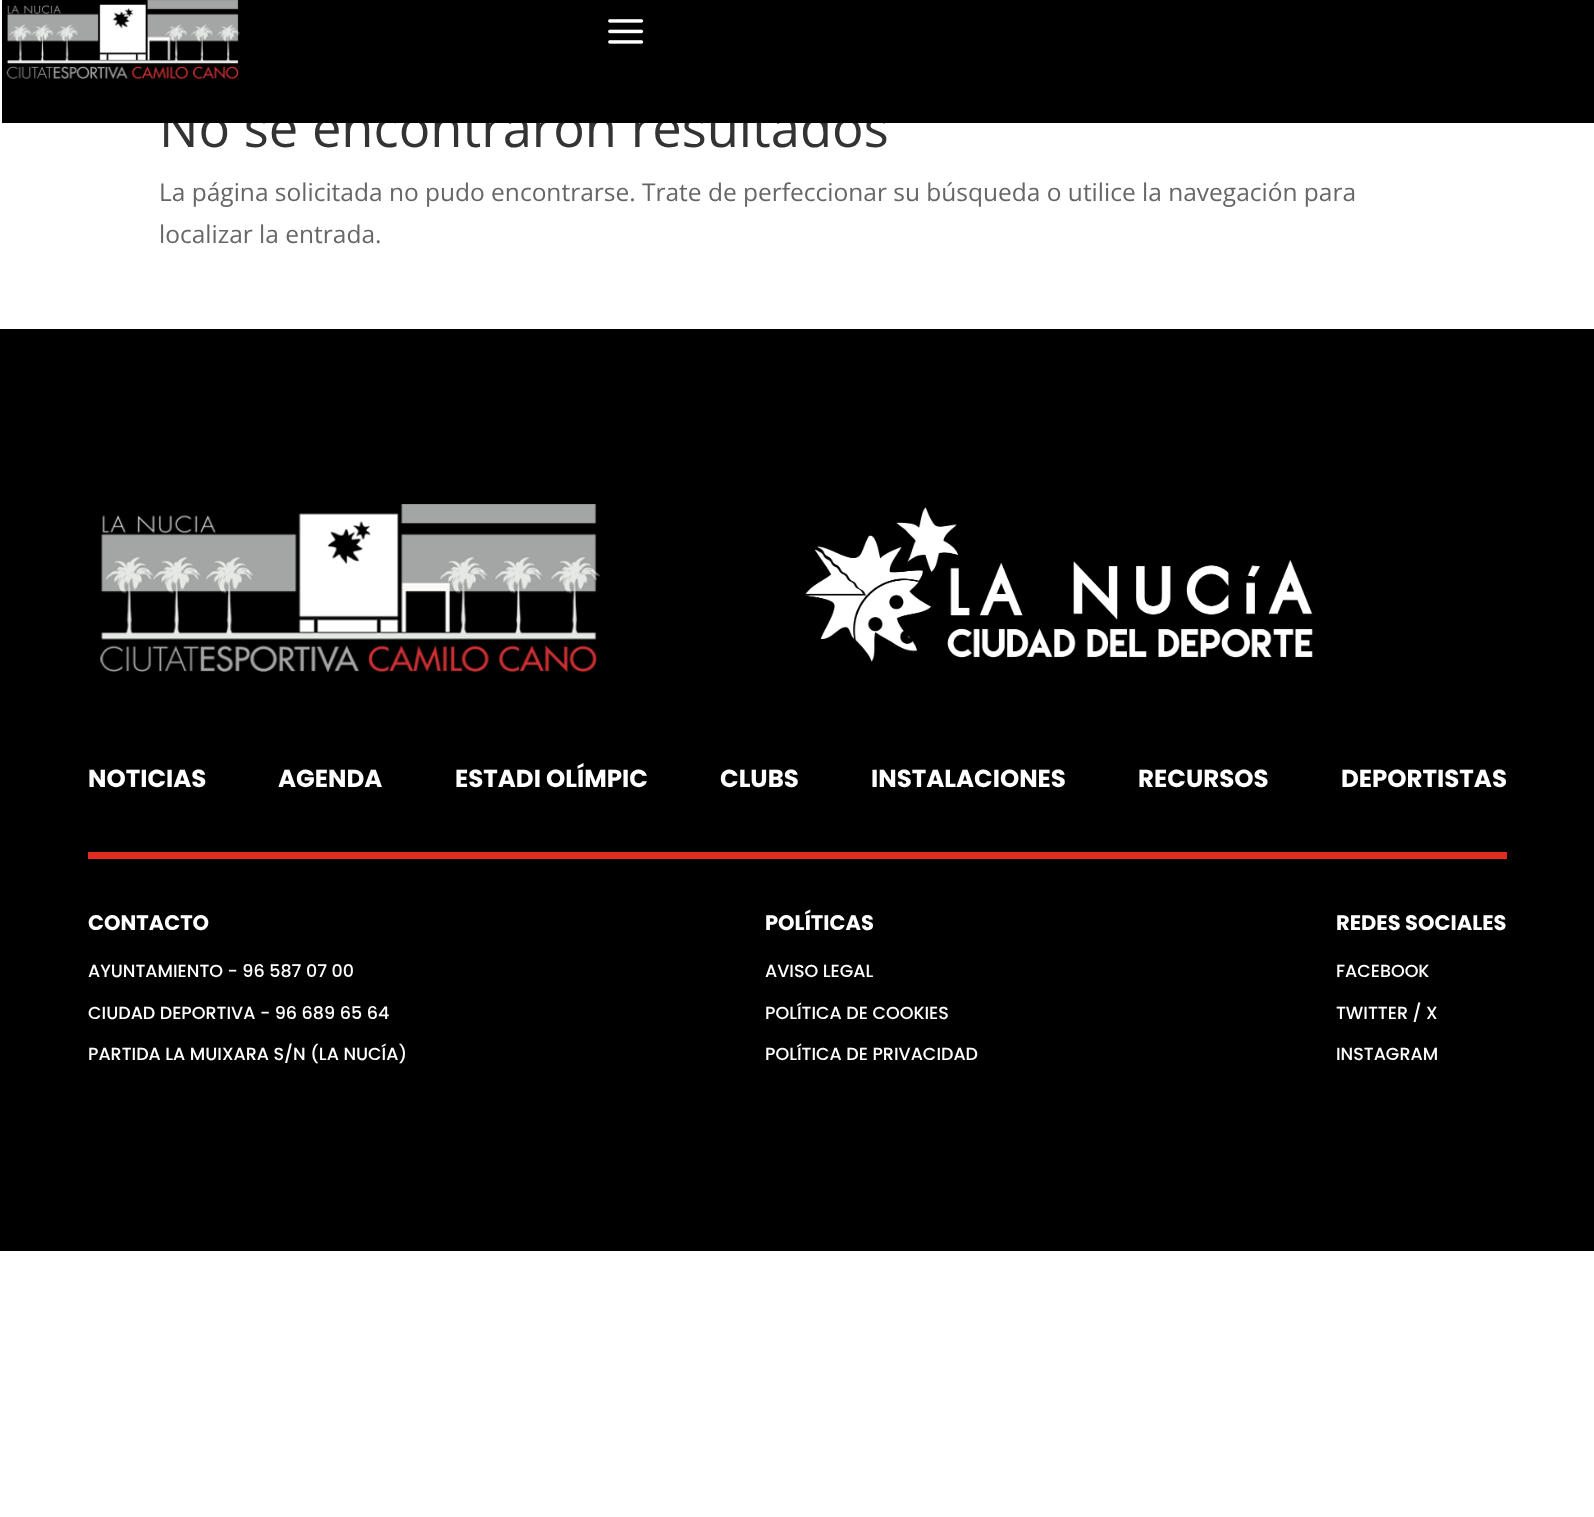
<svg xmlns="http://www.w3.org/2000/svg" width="1594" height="1517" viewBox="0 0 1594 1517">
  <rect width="100%" height="100%" fill="#ffffff"/>
  <text x="159" y="147" font-family="Open Sans" font-size="52.5" fill="#333333">No se encontraron resultados</text>
  <rect x="2" y="0" width="1592" height="123" fill="#000000"/>
  <image x="6" y="0" width="234" height="79" href="img1.png"/>
  <image x="608" y="19" width="36" height="25" href="img2.png"/>
  <text x="159" y="201" font-family="Open Sans" font-size="24.5" fill="#666666">La página solicitada no pudo encontrarse. Trate de perfeccionar su búsqueda o utilice la navegación para</text>
  <text x="159" y="243" font-family="Open Sans" font-size="24.5" fill="#666666">localizar la entrada.</text>
  <rect x="0" y="329" width="1594" height="922" fill="#000000"/>
  <image x="100" y="504" width="500" height="168" href="img3.png"/>
  <image x="805" y="507" width="508" height="155" href="img4.png"/>
  <text x="88" y="787" font-family="Poppins" font-size="24.5" font-weight="bold" fill="#ffffff">NOTICIAS</text>
  <text x="278" y="787" font-family="Poppins" font-size="24.5" font-weight="bold" fill="#ffffff">AGENDA</text>
  <text x="455" y="787" font-family="Poppins" font-size="24.5" font-weight="bold" fill="#ffffff">ESTADI OLÍMPIC</text>
  <text x="720" y="787" font-family="Poppins" font-size="24.5" font-weight="bold" fill="#ffffff">CLUBS</text>
  <text x="871" y="787" font-family="Poppins" font-size="24.5" font-weight="bold" fill="#ffffff">INSTALACIONES</text>
  <text x="1138" y="787" font-family="Poppins" font-size="24.5" font-weight="bold" fill="#ffffff">RECURSOS</text>
  <text x="1341" y="787" font-family="Poppins" font-size="24.5" font-weight="bold" fill="#ffffff">DEPORTISTAS</text>
  <rect x="88" y="852" width="1419" height="7" fill="#e02b20"/>
  <text x="88" y="930" font-family="Poppins" font-size="21" font-weight="bold" fill="#ffffff">CONTACTO</text>
  <text x="88" y="977" font-family="Poppins" font-size="17.5" font-weight="500" fill="#ffffff">AYUNTAMIENTO - 96 587 07 00</text>
  <text x="88" y="1019" font-family="Poppins" font-size="17.5" font-weight="500" fill="#ffffff">CIUDAD DEPORTIVA - 96 689 65 64</text>
  <text x="88" y="1060" font-family="Poppins" font-size="17.5" font-weight="500" fill="#ffffff">PARTIDA LA MUIXARA S/N (LA NUCÍA)</text>
  <text x="765" y="930" font-family="Poppins" font-size="21" font-weight="bold" fill="#ffffff">POLÍTICAS</text>
  <text x="765" y="977" font-family="Poppins" font-size="17.5" font-weight="500" fill="#ffffff">AVISO LEGAL</text>
  <text x="765" y="1019" font-family="Poppins" font-size="17.5" font-weight="500" fill="#ffffff">POLÍTICA DE COOKIES</text>
  <text x="765" y="1060" font-family="Poppins" font-size="17.5" font-weight="500" fill="#ffffff">POLÍTICA DE PRIVACIDAD</text>
  <text x="1336" y="930" font-family="Poppins" font-size="21" font-weight="bold" fill="#ffffff">REDES SOCIALES</text>
  <text x="1336" y="977" font-family="Poppins" font-size="17.5" font-weight="500" fill="#ffffff">FACEBOOK</text>
  <text x="1336" y="1019" font-family="Poppins" font-size="17.5" font-weight="500" fill="#ffffff">TWITTER / X</text>
  <text x="1336" y="1060" font-family="Poppins" font-size="17.5" font-weight="500" fill="#ffffff">INSTAGRAM</text>
</svg>
